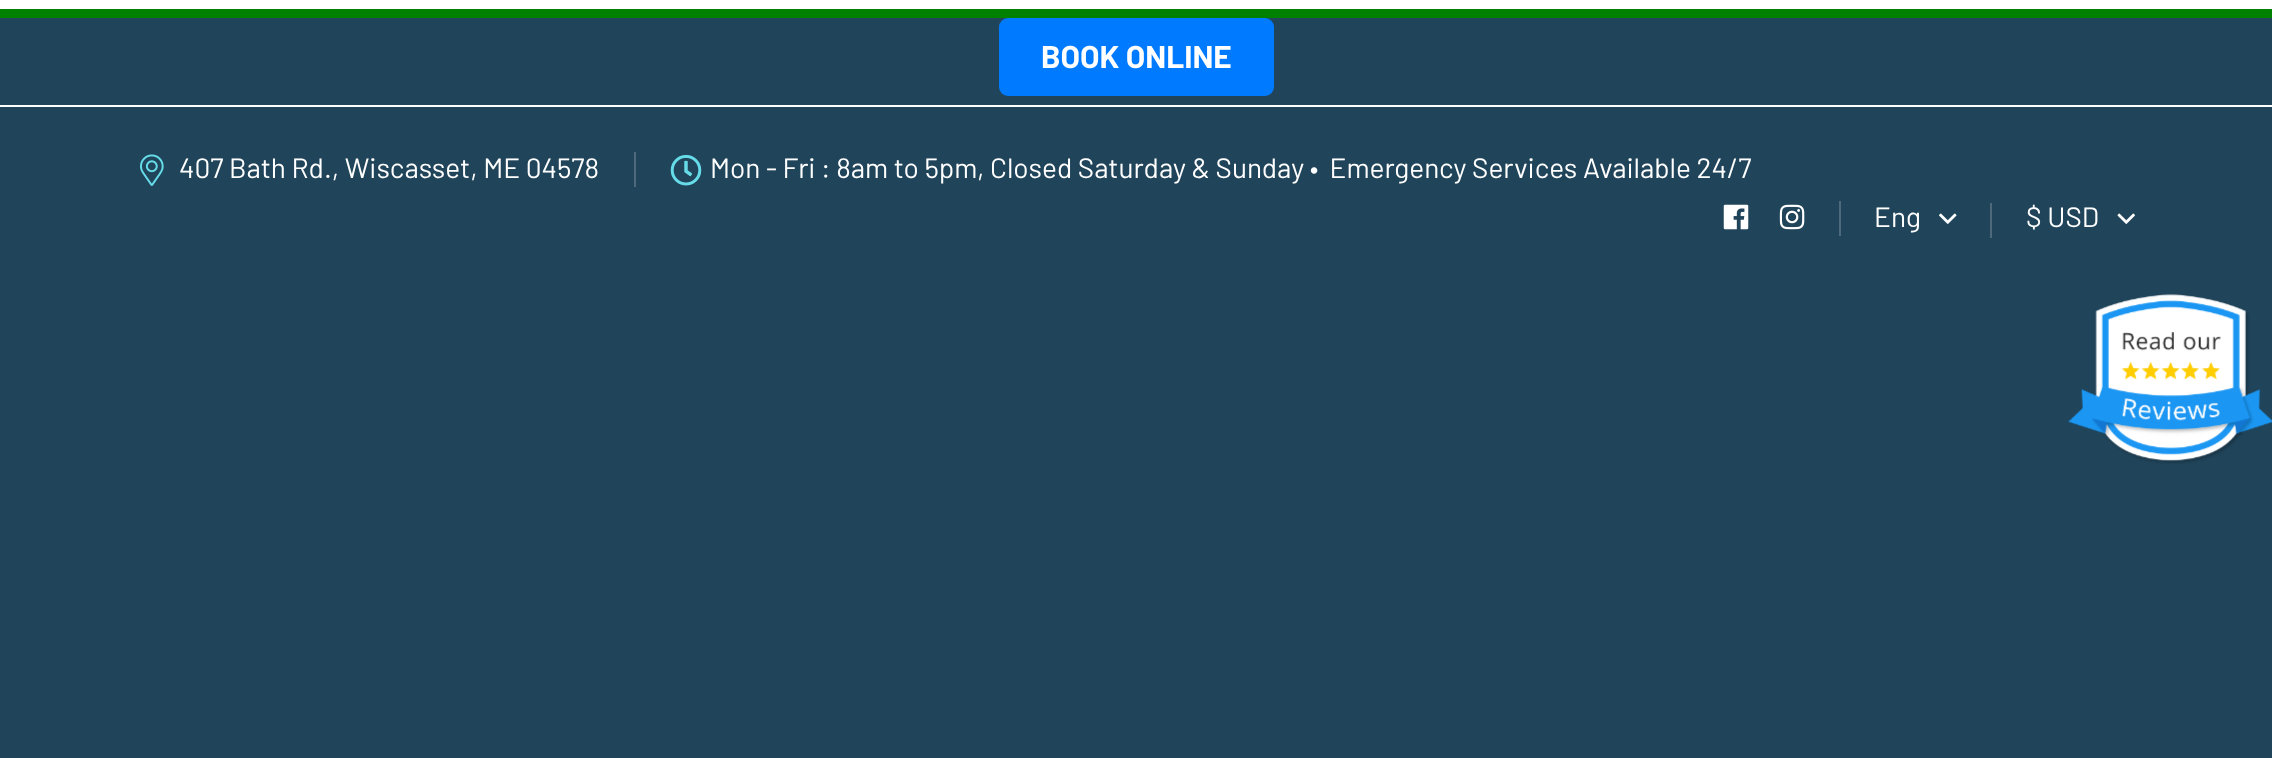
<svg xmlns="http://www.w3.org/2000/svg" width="2272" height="758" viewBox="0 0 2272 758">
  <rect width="100%" height="100%" fill="#ffffff"/>
  <rect x="0" y="18" width="2272" height="87" fill="#20445a"/>
  <rect x="0" y="9" width="2272" height="9" fill="#008000"/>
  <rect x="999" y="18" width="275" height="78" rx="9" fill="#007bff"/>
  <text x="1041" y="68" font-family="Barlow" font-size="31.5" font-weight="bold" fill="#ffffff">BOOK ONLINE</text>
  <rect x="0" y="107" width="2272" height="651" fill="#20445a"/>
  <image x="140" y="154" width="24" height="32" href="img1.png"/>
  <text x="179" y="178" font-family="Barlow" font-size="28" fill="#ffffff">407 Bath Rd., Wiscasset, ME 04578</text>
  <rect x="634" y="152" width="2" height="35" fill="#4d697b"/>
  <image x="670" y="154" width="32" height="32" href="img2.png"/>
  <text x="710" y="178" font-family="Barlow" font-size="28" fill="#ffffff" xml:space="preserve">Mon - Fri : 8am to 5pm, Closed Saturday &amp; Sunday •  Emergency Services Available 24/7</text>
  <image x="1723" y="204" width="26" height="26" href="img3.png"/>
  <image x="1779" y="204" width="26" height="26" href="img4.png"/>
  <rect x="1839" y="201" width="2" height="35" fill="#4d697b"/>
  <text x="1874" y="227" font-family="Barlow" font-size="28" fill="#ffffff">Eng</text>
  <image x="1939" y="213" width="18" height="11" href="img5.png"/>
  <rect x="1990" y="203" width="2" height="35" fill="#4d697b"/>
  <text x="2026" y="227" font-family="Barlow" font-size="28" fill="#ffffff">$ USD</text>
  <image x="2117" y="213" width="18" height="11" href="img6.png"/>
  <image x="2068" y="294" width="204" height="170" href="img7.png"/>
</svg>
